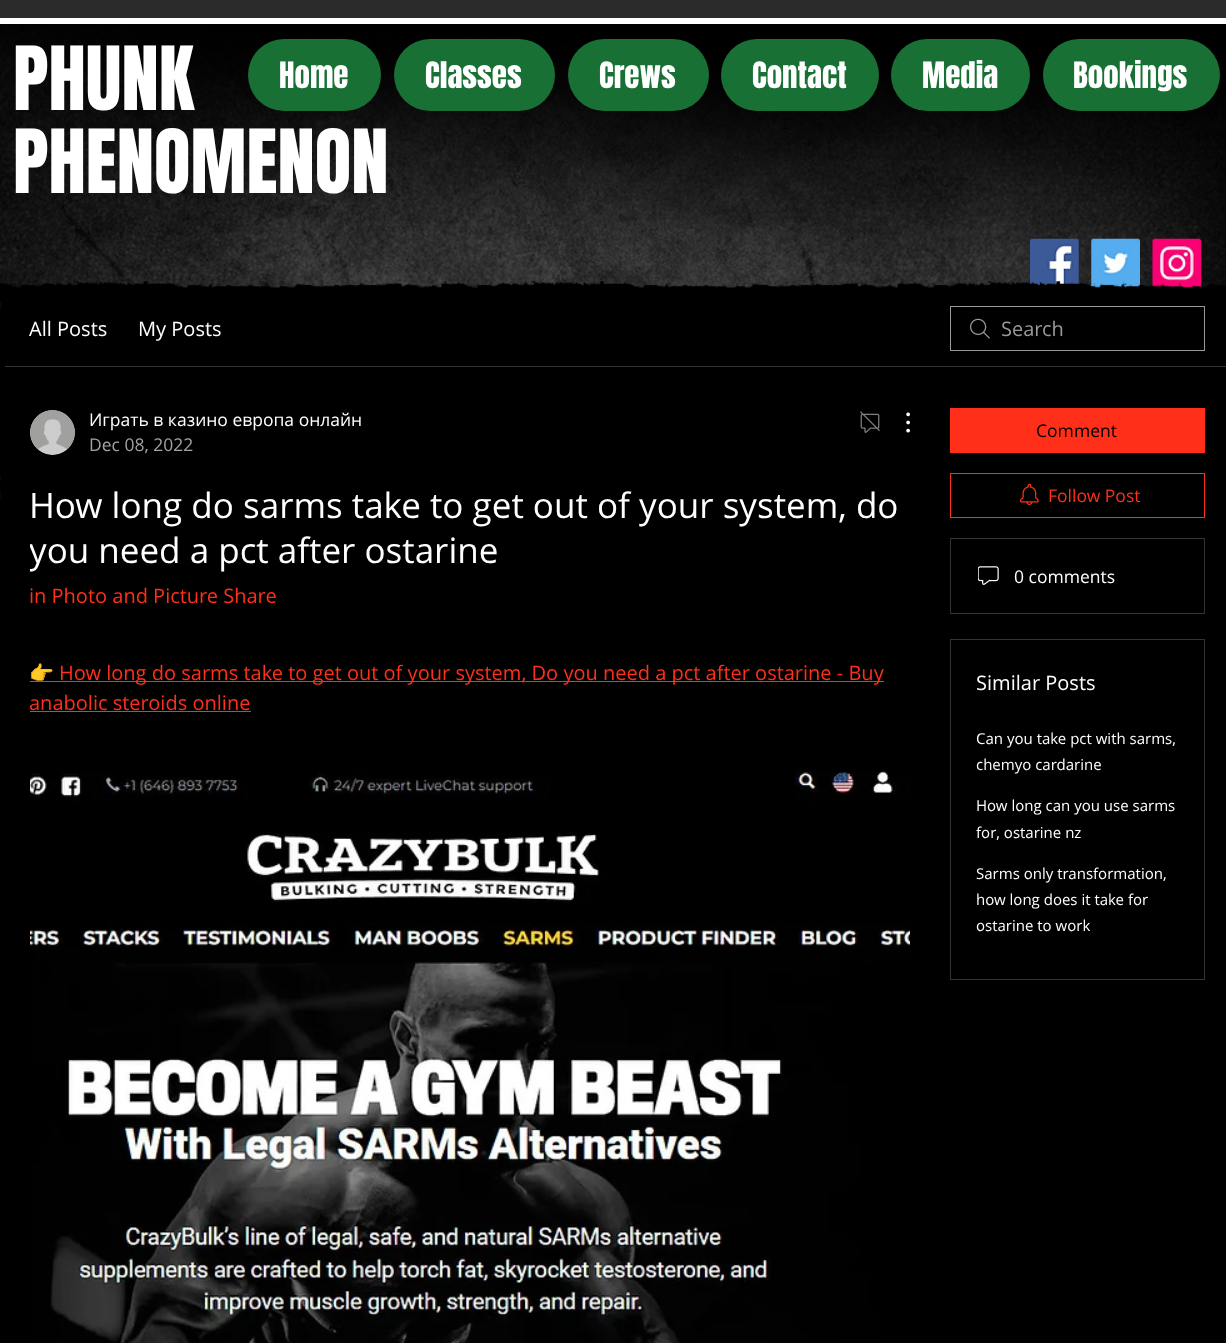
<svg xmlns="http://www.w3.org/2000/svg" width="1226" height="1343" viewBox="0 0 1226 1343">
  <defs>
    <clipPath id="clip1"><rect x="30" y="483" width="880" height="90"/></clipPath>
    <clipPath id="clip2"><rect x="30" y="628" width="880" height="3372"/></clipPath>
  </defs>
  <rect width="100%" height="100%" fill="#000000"/>
  <image x="0" y="24" width="1226" height="1257" href="img1.png"/>
  <rect x="0" y="0" width="1226" height="18" fill="#2b2b2b"/>
  <rect x="0" y="18" width="1226" height="6" fill="#ffffff"/>
  <text x="13" y="110" font-family="Anton" font-size="75" fill="#ffffff">PHUNK</text>
  <text x="13" y="193" font-family="Anton" font-size="75" fill="#ffffff">PHENOMENON</text>
  <rect x="248" y="39" width="133" height="72" rx="36" fill="#187035"/>
  <text x="279" y="88" font-family="Anton" font-size="31" fill="#ffffff">Home</text>
  <rect x="394" y="39" width="161" height="72" rx="36" fill="#187035"/>
  <text x="425" y="88" font-family="Anton" font-size="31" fill="#ffffff">Classes</text>
  <rect x="568" y="39" width="141" height="72" rx="36" fill="#187035"/>
  <text x="599" y="88" font-family="Anton" font-size="31" fill="#ffffff">Crews</text>
  <rect x="721" y="39" width="158" height="72" rx="36" fill="#187035"/>
  <text x="752" y="88" font-family="Anton" font-size="31" fill="#ffffff">Contact</text>
  <rect x="891" y="39" width="139" height="72" rx="36" fill="#187035"/>
  <text x="922" y="88" font-family="Anton" font-size="31" fill="#ffffff">Media</text>
  <rect x="1043" y="39" width="177" height="72" rx="36" fill="#187035"/>
  <text x="1073" y="88" font-family="Anton" font-size="31" fill="#ffffff">Bookings</text>
  <image x="1030" y="238" width="49" height="48" href="img2.png"/>
  <image x="1091" y="238" width="49" height="50" href="img3.png"/>
  <image x="1152" y="238" width="50" height="50" href="img4.png"/>
  <image x="0" y="281" width="1226" height="12" href="img5.png"/>
  <image x="0" y="293" width="5" height="1050" href="img6.png"/>
  <rect x="5" y="293" width="1221" height="988" fill="#000000"/>
  <rect x="5" y="366" width="1221" height="1" fill="#333333"/>
  <text x="29" y="336" font-family="Open Sans" font-size="20" fill="#ffffff">All Posts</text>
  <text x="138" y="336" font-family="Open Sans" font-size="20" fill="#ffffff">My Posts</text>
  <image x="970" y="318" width="20" height="21" href="img7.png"/>
  <rect x="950.5" y="306.5" width="254" height="44" fill="none" stroke="#999999"/>
  <text x="1001" y="336" font-family="Open Sans" font-size="20" fill="#999999">Search</text>
  <image x="30" y="410" width="45" height="45" href="img8.png"/>
  <text x="89" y="426" font-family="Open Sans" font-size="17.5" fill="#ffffff">Играть в казино европа онлайн</text>
  <text x="89" y="451" font-family="Open Sans" font-size="17.5" fill="#a3a3a3">Dec 08, 2022</text>
  <image x="860" y="411" width="20" height="22" href="img9.png"/>
  <image x="906" y="412" width="4" height="21" href="img10.png"/>
  <text x="29" y="518" font-family="Open Sans" font-size="35" fill="#ffffff">How long do sarms take to get out of your system, do</text>
  <g clip-path="url(#clip1)">
    <text x="29" y="563" font-family="Open Sans" font-size="35" fill="#ffffff">you need a pct after ostarine</text>
  </g>
  <text x="29" y="603" font-family="Open Sans" font-size="20" fill="#ff2f19">in Photo and Picture Share</text>
  <rect x="30" y="681" width="854" height="1" fill="#ff2f19"/>
  <g clip-path="url(#clip2)">
    <text x="29" y="680" font-family="Noto Color Emoji" font-size="20" fill="#ff2f19">👉</text>
  </g>
  <text x="59" y="680" font-family="Open Sans" font-size="20" fill="#ff2f19">How long do sarms take to get out of your system, Do you need a pct after ostarine - Buy</text>
  <text x="29" y="710" font-family="Open Sans" font-size="20" fill="#ff2f19">anabolic steroids online</text>
  <rect x="30" y="711" width="221" height="1" fill="#ff2f19"/>
  <image x="30" y="769" width="880" height="574" href="img11.png"/>
  <rect x="950" y="408" width="255" height="45" fill="#ff2f19"/>
  <text x="1036" y="437" font-family="Open Sans" font-size="17.5" fill="#000000">Comment</text>
  <rect x="950.5" y="473.5" width="254" height="44" fill="none" stroke="#ff2f19"/>
  <image x="1020" y="483" width="19" height="22" href="img12.png"/>
  <text x="1048" y="502" font-family="Open Sans" font-size="17.5" fill="#ff2f19">Follow Post</text>
  <rect x="950.5" y="538.5" width="254" height="75" fill="none" stroke="#333333"/>
  <image x="978" y="566" width="21" height="19" href="img13.png"/>
  <text x="1014" y="583" font-family="Open Sans" font-size="17.5" fill="#ffffff">0 comments</text>
  <rect x="950.5" y="639.5" width="254" height="340" fill="none" stroke="#333333"/>
  <text x="976" y="690" font-family="Open Sans" font-size="20" fill="#ffffff">Similar Posts</text>
  <text x="976" y="744" font-family="Open Sans" font-size="15" fill="#ffffff">Can you take pct with sarms,</text>
  <text x="976" y="770" font-family="Open Sans" font-size="15" fill="#ffffff">chemyo cardarine</text>
  <text x="976" y="811" font-family="Open Sans" font-size="15" fill="#ffffff">How long can you use sarms</text>
  <text x="976" y="838" font-family="Open Sans" font-size="15" fill="#ffffff">for, ostarine nz</text>
  <text x="976" y="879" font-family="Open Sans" font-size="15" fill="#ffffff">Sarms only transformation,</text>
  <text x="976" y="905" font-family="Open Sans" font-size="15" fill="#ffffff">how long does it take for</text>
  <text x="976" y="931" font-family="Open Sans" font-size="15" fill="#ffffff">ostarine to work</text>
</svg>
